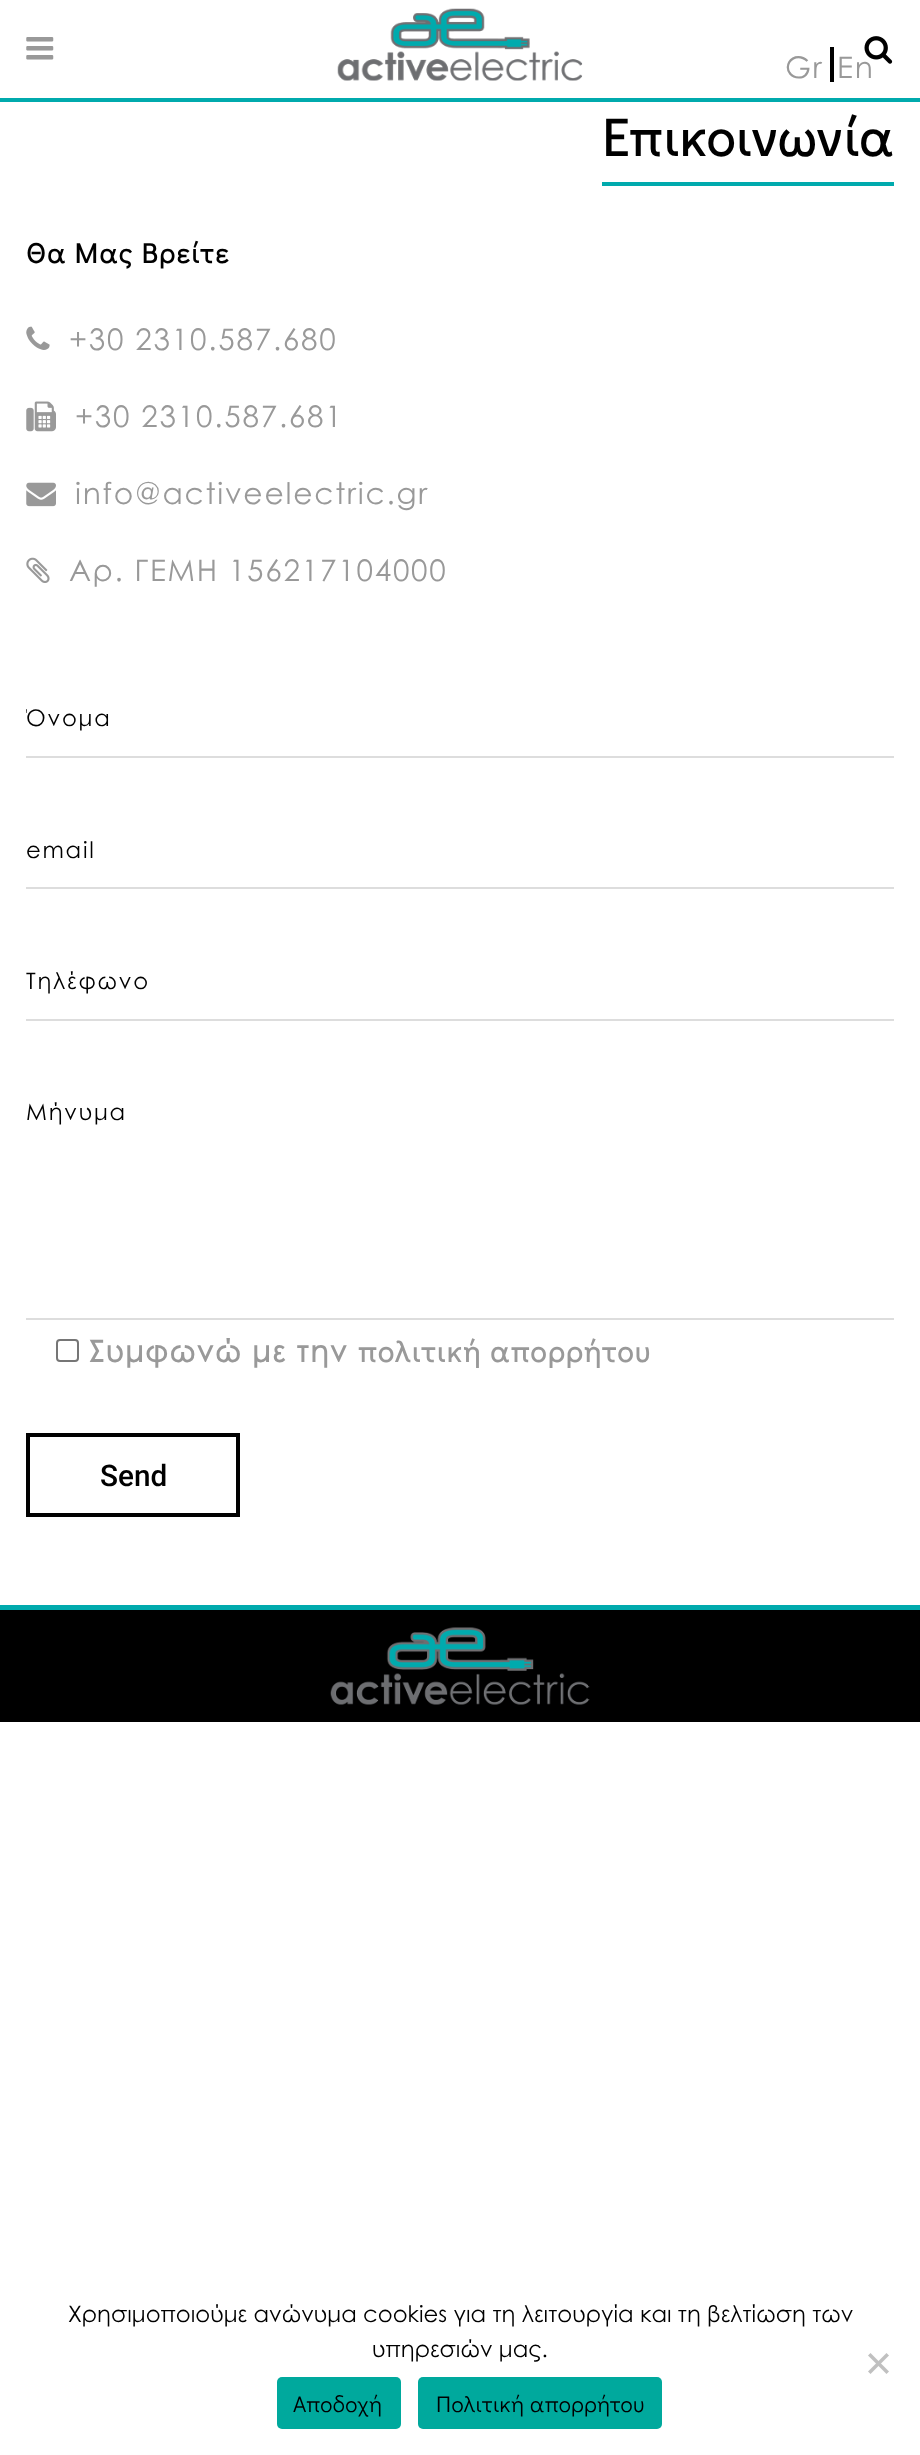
<svg xmlns="http://www.w3.org/2000/svg" width="920" height="2455" viewBox="0 0 920 2455">
  <defs>
    <clipPath id="clip1"><rect x="26" y="704" width="868" height="28"/></clipPath>
  </defs>
  <rect width="100%" height="100%" fill="#ffffff"/>
  <rect x="0" y="98" width="920" height="4" fill="#00aaad"/>
  <image x="26" y="37" width="28" height="23" href="img1.png"/>
  <image x="337" y="8" width="246" height="73" href="img2.png"/>
  <image x="864" y="36" width="29" height="28" href="img3.png"/>
  <text x="785" y="78" font-family="Century Gothic" font-size="29.75" letter-spacing="1.75" fill="#999999">Gr</text>
  <rect x="830" y="47" width="4" height="35" fill="#000000"/>
  <text x="837" y="78" font-family="Century Gothic" font-size="29.75" letter-spacing="1.75" fill="#999999">En</text>
  <rect x="602" y="182" width="292" height="4" fill="#00aaad"/>
  <text x="602" y="156" font-family="Didact Gothic" font-size="52.5" font-weight="bold" letter-spacing="1.75" fill="#000000">Επικοινωνία</text>
  <text x="26" y="263" font-family="Didact Gothic" font-size="28" font-weight="bold" letter-spacing="1.75" fill="#000000">Θα Μας Βρείτε</text>
  <image x="26" y="326" width="24" height="24" href="img4.png"/>
  <text x="69" y="350" font-family="Century Gothic" font-size="29.75" letter-spacing="1.75" fill="#999999">+30 2310.587.680</text>
  <image x="26" y="401" width="30" height="31" href="img5.png"/>
  <text x="75" y="427" font-family="Century Gothic" font-size="29.75" letter-spacing="1.75" fill="#999999">+30 2310.587.681</text>
  <image x="26" y="482" width="30" height="25" href="img6.png"/>
  <text x="75" y="504" font-family="Century Gothic" font-size="29.75" letter-spacing="1.75" fill="#999999">info@activeelectric.gr</text>
  <image x="26" y="557" width="24" height="26" href="img7.png"/>
  <text x="69" y="581" font-family="Century Gothic" font-size="29.75" letter-spacing="1.75" fill="#999999">Αρ. ΓΕΜΗ 156217104000</text>
  <rect x="26" y="756" width="868" height="2" fill="#dddddd"/>
  <g clip-path="url(#clip1)">
    <text x="26" y="726" font-family="Century Gothic" font-size="22.75" letter-spacing="1.75" fill="#000000">Όνομα</text>
  </g>
  <rect x="26" y="887" width="868" height="2" fill="#dddddd"/>
  <text x="26" y="858" font-family="Century Gothic" font-size="22.75" letter-spacing="1.75" fill="#000000">email</text>
  <rect x="26" y="1019" width="868" height="2" fill="#dddddd"/>
  <text x="26" y="989" font-family="Century Gothic" font-size="22.75" letter-spacing="1.75" fill="#000000">Τηλέφωνο</text>
  <rect x="26" y="1318" width="868" height="2" fill="#dddddd"/>
  <text x="26" y="1120" font-family="Century Gothic" font-size="22.75" letter-spacing="1.75" fill="#000000">Μήνυμα</text>
  <rect x="57" y="1340" width="21" height="21" rx="3" fill="none" stroke="#767676" stroke-width="2"/>
  <text x="89" y="1362" font-family="Century Gothic" font-size="29.75" font-weight="bold" letter-spacing="1.75" fill="#999999">Συμφωνώ με την</text>
  <text x="358" y="1362" font-family="Didact Gothic" font-size="29.75" font-weight="bold" letter-spacing="1.75" fill="#999999">πολιτική απορρήτου</text>
  <rect x="28" y="1435" width="210" height="80" fill="none" stroke="#000000" stroke-width="4"/>
  <text x="100" y="1486" font-family="Roboto" font-size="29.75" font-weight="500" fill="#000000">Send</text>
  <rect x="0" y="1610" width="920" height="112" fill="#000000"/>
  <rect x="0" y="1605" width="920" height="5" fill="#00aaad"/>
  <image x="330" y="1627" width="260" height="78" href="img8.png"/>
  <text x="68" y="2322" font-family="Century Gothic" font-size="22.75" fill="#000000">Χρησιμοποιούμε ανώνυμα cookies για τη λειτουργία και τη βελτίωση των</text>
  <text x="372" y="2357" font-family="Century Gothic" font-size="22.75" fill="#000000">υπηρεσιών μας.</text>
  <path d="M886.5 2353L889 2355.5L870.5 2374L868 2371.5Z" fill="#c0c0c0"/>
  <path d="M868 2355.5L870.5 2353L889 2371.5L886.5 2374Z" fill="#c0c0c0"/>
  <rect x="277" y="2377" width="124" height="52" rx="5" fill="#00a99d"/>
  <text x="293" y="2412" font-family="Didact Gothic" font-size="22.75" letter-spacing="0.4" fill="#000000">Αποδοχή</text>
  <rect x="418" y="2377" width="244" height="52" rx="5" fill="#00a99d"/>
  <text x="436" y="2412" font-family="Didact Gothic" font-size="22.75" letter-spacing="0.4" fill="#000000">Πολιτική απορρήτου</text>
</svg>
